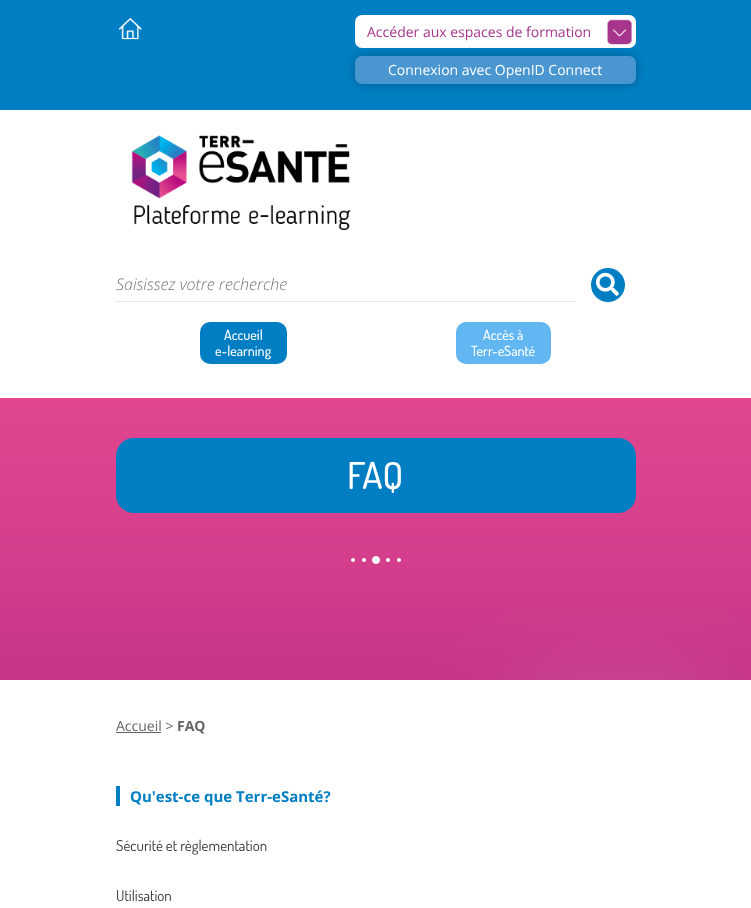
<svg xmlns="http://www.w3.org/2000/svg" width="751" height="908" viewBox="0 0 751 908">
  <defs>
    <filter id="blur1" x="-50%" y="-200%" width="200%" height="500%"><feGaussianBlur stdDeviation="5.5"/></filter>
  </defs>
  <rect width="100%" height="100%" fill="#ffffff"/>
  <rect x="0" y="0" width="751" height="110" fill="#007ec3"/>
  <image x="118" y="18" width="24" height="22" href="img1.png"/>
  <rect x="355" y="15" width="281" height="33" rx="7" fill="#ffffff"/>
  <text x="367" y="37" font-family="Open Sans" font-size="14" fill="#a7358b">Accéder aux espaces de formation</text>
  <image x="607" y="19" width="25" height="26" href="img2.png"/>
  <rect x="355" y="56" width="281" height="28" rx="7" fill="#000000" fill-opacity="0.25" filter="url(#blur1)"/>
  <rect x="355" y="56" width="281" height="28" rx="7" fill="#4a96d1"/>
  <text x="388" y="75" font-family="Open Sans" font-size="14" fill="#ffffff">Connexion avec OpenID Connect</text>
  <image x="131" y="135" width="220" height="95" href="img3.png"/>
  <rect x="116" y="301" width="460" height="1" fill="#e5e5e5"/>
  <text x="116" y="290" font-family="Open Sans" font-size="16" font-weight="300" font-style="italic" fill="#757575">Saisissez votre recherche</text>
  <circle cx="608" cy="285" r="17" fill="#007ec3"/>
  <image x="596" y="272" width="23" height="24" href="img4.png"/>
  <rect x="200" y="322" width="87" height="42" rx="10" fill="#007ec3"/>
  <text x="224" y="340" font-family="Dosis" font-size="14" font-weight="500" fill="#ffffff">Accueil</text>
  <text x="215" y="356" font-family="Dosis" font-size="14" font-weight="500" fill="#ffffff">e-learning</text>
  <rect x="456" y="322" width="95" height="42" rx="10" fill="#62b7f2"/>
  <text x="483" y="340" font-family="Dosis" font-size="14" font-weight="500" fill="#ffffff">Accès à</text>
  <text x="471" y="356" font-family="Dosis" font-size="14" font-weight="500" fill="#ffffff">Terr-eSanté</text>
  <image x="0" y="398" width="751" height="282" href="img5.png"/>
  <rect x="116" y="438" width="520" height="75" rx="18" fill="#007ec3"/>
  <text x="347" y="489" font-family="Dosis" font-size="37" font-weight="500" fill="#ffffff">FAQ</text>
  <image x="351" y="556" width="50" height="8" href="img6.png"/>
  <text x="116" y="731" font-family="Open Sans" font-size="14" fill="#666666">Accueil &gt;</text>
  <rect x="116" y="732" width="45" height="1" fill="#666666"/>
  <text x="177" y="731" font-family="Open Sans" font-size="14" font-weight="bold" fill="#666666">FAQ</text>
  <rect x="116" y="786" width="4" height="20" fill="#007ec3"/>
  <text x="130" y="802" font-family="Open Sans" font-size="15" font-weight="bold" fill="#007ec3">Qu'est-ce que Terr-eSanté?</text>
  <text x="116" y="851" font-family="Dosis" font-size="15" fill="#333333">Sécurité et règlementation</text>
  <text x="116" y="901" font-family="Dosis" font-size="15" fill="#333333">Utilisation</text>
</svg>
